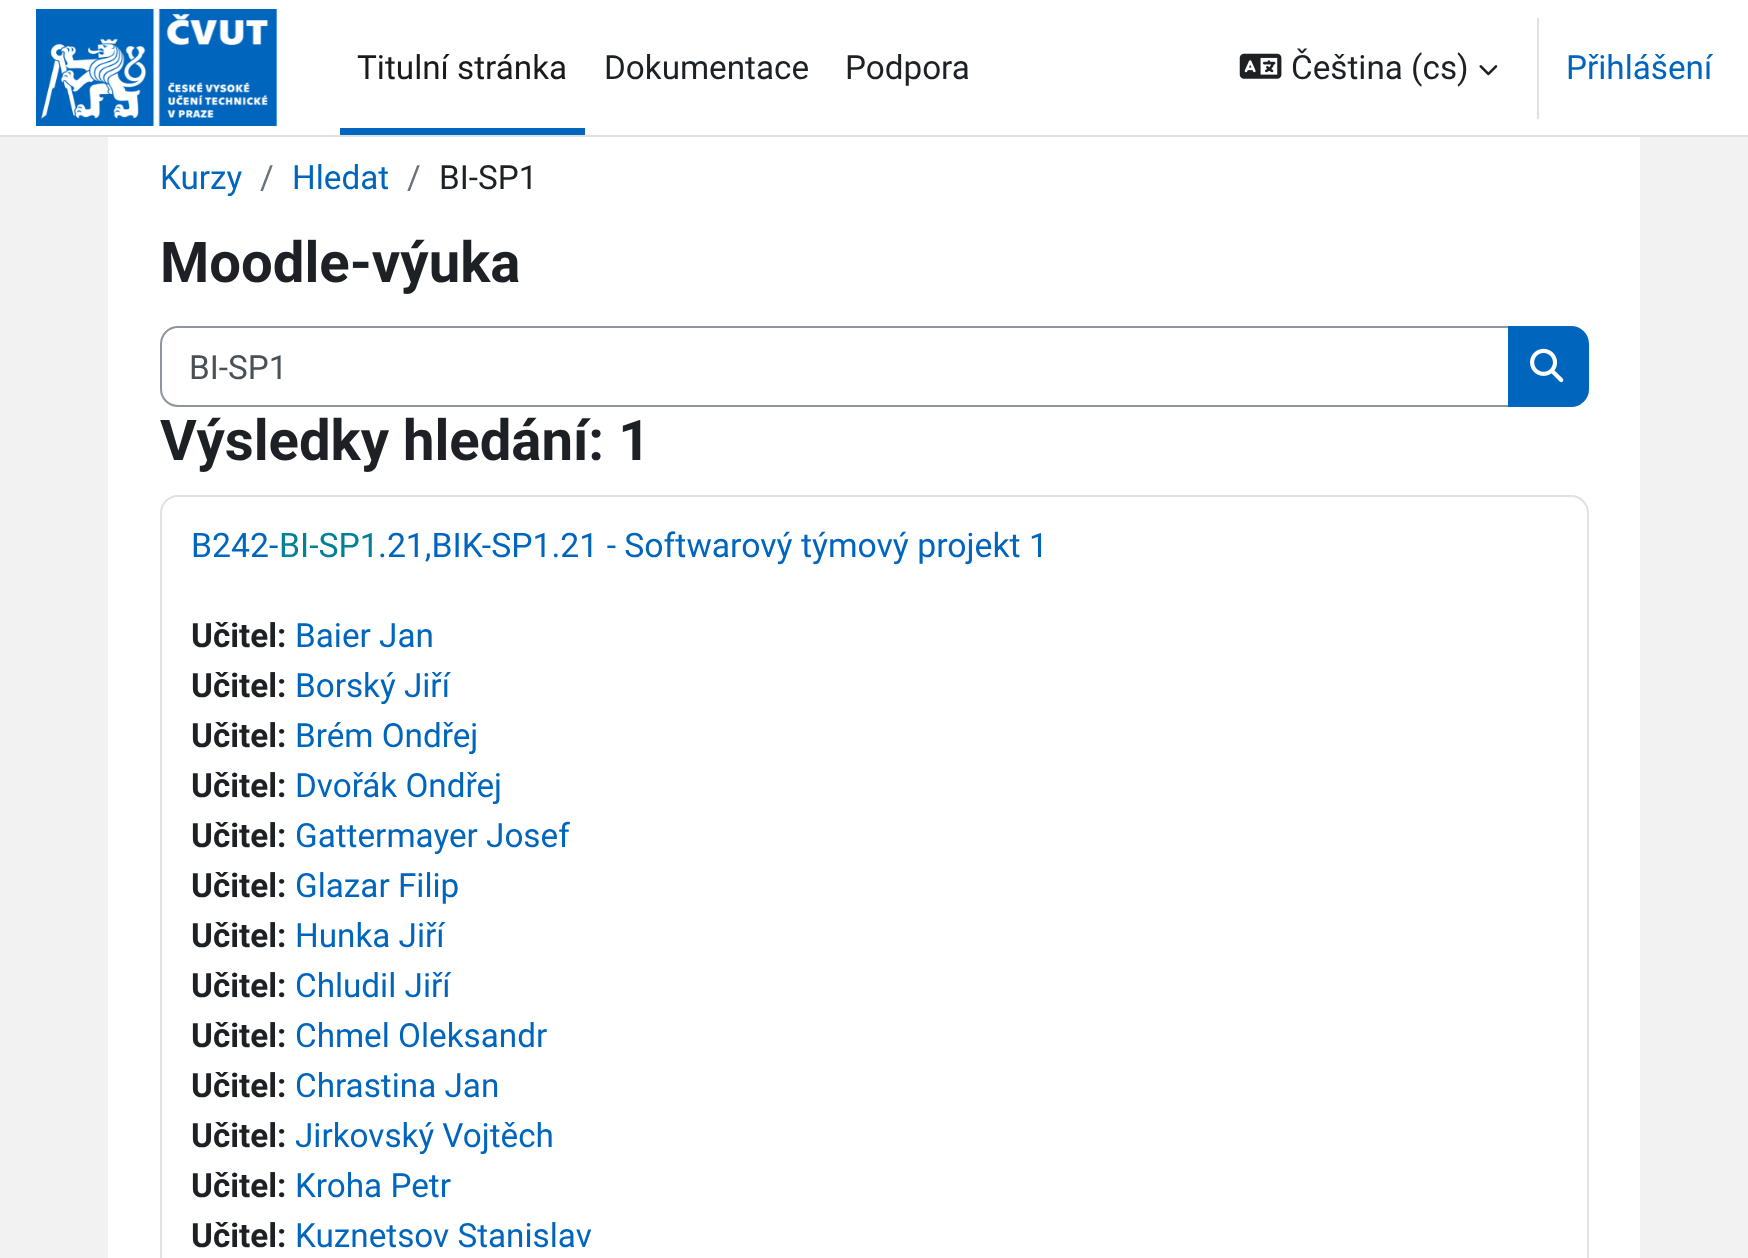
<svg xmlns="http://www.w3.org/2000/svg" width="1748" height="1258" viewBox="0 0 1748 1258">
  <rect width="100%" height="100%" fill="#f2f2f2"/>
  <rect x="0" y="0" width="1748" height="135" fill="#ffffff"/>
  <rect x="0" y="135" width="1748" height="2" fill="#dee2e6"/>
  <image x="36" y="9" width="241" height="117" href="img1.png"/>
  <rect x="340" y="128" width="245" height="7" fill="#0065bd"/>
  <text x="357" y="79" font-family="Roboto" font-size="33.25" fill="#1a1a1a">Titulní stránka</text>
  <text x="604" y="79" font-family="Roboto" font-size="33.25" fill="#1d2125">Dokumentace</text>
  <text x="845" y="79" font-family="Roboto" font-size="33.25" fill="#1d2125">Podpora</text>
  <image x="1239" y="53" width="43" height="26" href="img2.png"/>
  <text x="1291" y="79" font-family="Roboto" font-size="33.25" fill="#1d2125">Čeština (cs)</text>
  <image x="1479" y="65" width="19" height="11" href="img3.png"/>
  <rect x="1537" y="18" width="2" height="101" fill="#dee2e6"/>
  <text x="1566" y="79" font-family="Roboto" font-size="33.25" fill="#0065bd">Přihlášení</text>
  <rect x="108" y="137" width="1532" height="1121" fill="#ffffff"/>
  <text x="160" y="189" font-family="Roboto" font-size="33.25" fill="#0065bd">Kurzy</text>
  <text x="260" y="189" font-family="Roboto" font-size="33.25" fill="#6a737b">/</text>
  <text x="292" y="189" font-family="Roboto" font-size="33.25" fill="#0065bd">Hledat</text>
  <text x="407" y="189" font-family="Roboto" font-size="33.25" fill="#6a737b">/</text>
  <text x="439" y="189" font-family="Roboto" font-size="33.25" fill="#1d2125">BI-SP1</text>
  <text x="160" y="282" font-family="Roboto" font-size="56.25" font-weight="bold" fill="#1d2125">Moodle-výuka</text>
  <path d="M178 327H1509V406H178C168.5 406 161 398.5 161 389V344C161 334.5 168.5 327 178 327Z" fill="none" stroke="#8f959e" stroke-width="2"/>
  <text x="189" y="379" font-family="Roboto" font-size="33.25" fill="#495057">BI-SP1</text>
  <path d="M1509 327H1571C1580.5 327 1588 334.5 1588 344V389C1588 398.5 1580.5 406 1571 406H1509Z" fill="#0065bd" stroke="#0065bd" stroke-width="2"/>
  <image x="1530" y="348" width="34" height="35" href="img4.png"/>
  <text x="160" y="460" font-family="Roboto" font-size="56.25" font-weight="bold" fill="#1d2125">Výsledky hledání: 1</text>
  <rect x="161" y="496" width="1427" height="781" rx="17" fill="none" stroke="#dee2e6" stroke-width="2"/>
  <text x="191" y="557" font-family="Roboto" font-size="33.75" fill="#0065bd">B242-</text>
  <text x="279" y="557" font-family="Roboto" font-size="33.75" fill="#008196">BI-SP1</text>
  <text x="378" y="557" font-family="Roboto" font-size="33.75" fill="#0065bd">.21,BIK-SP1.21 - Softwarový týmový projekt 1</text>
  <text x="191" y="647" font-family="Roboto" font-size="33.25" font-weight="bold" fill="#1d2125">Učitel:</text>
  <text x="295" y="647" font-family="Roboto" font-size="33.25" fill="#0065bd">Baier Jan</text>
  <text x="191" y="697" font-family="Roboto" font-size="33.25" font-weight="bold" fill="#1d2125">Učitel:</text>
  <text x="295" y="697" font-family="Roboto" font-size="33.25" fill="#0065bd">Borský Jiří</text>
  <text x="191" y="747" font-family="Roboto" font-size="33.25" font-weight="bold" fill="#1d2125">Učitel:</text>
  <text x="295" y="747" font-family="Roboto" font-size="33.25" fill="#0065bd">Brém Ondřej</text>
  <text x="191" y="797" font-family="Roboto" font-size="33.25" font-weight="bold" fill="#1d2125">Učitel:</text>
  <text x="295" y="797" font-family="Roboto" font-size="33.25" fill="#0065bd">Dvořák Ondřej</text>
  <text x="191" y="847" font-family="Roboto" font-size="33.25" font-weight="bold" fill="#1d2125">Učitel:</text>
  <text x="295" y="847" font-family="Roboto" font-size="33.25" fill="#0065bd">Gattermayer Josef</text>
  <text x="191" y="897" font-family="Roboto" font-size="33.25" font-weight="bold" fill="#1d2125">Učitel:</text>
  <text x="295" y="897" font-family="Roboto" font-size="33.25" fill="#0065bd">Glazar Filip</text>
  <text x="191" y="947" font-family="Roboto" font-size="33.25" font-weight="bold" fill="#1d2125">Učitel:</text>
  <text x="295" y="947" font-family="Roboto" font-size="33.25" fill="#0065bd">Hunka Jiří</text>
  <text x="191" y="997" font-family="Roboto" font-size="33.25" font-weight="bold" fill="#1d2125">Učitel:</text>
  <text x="295" y="997" font-family="Roboto" font-size="33.25" fill="#0065bd">Chludil Jiří</text>
  <text x="191" y="1047" font-family="Roboto" font-size="33.25" font-weight="bold" fill="#1d2125">Učitel:</text>
  <text x="295" y="1047" font-family="Roboto" font-size="33.25" fill="#0065bd">Chmel Oleksandr</text>
  <text x="191" y="1097" font-family="Roboto" font-size="33.25" font-weight="bold" fill="#1d2125">Učitel:</text>
  <text x="295" y="1097" font-family="Roboto" font-size="33.25" fill="#0065bd">Chrastina Jan</text>
  <text x="191" y="1147" font-family="Roboto" font-size="33.25" font-weight="bold" fill="#1d2125">Učitel:</text>
  <text x="295" y="1147" font-family="Roboto" font-size="33.25" fill="#0065bd">Jirkovský Vojtěch</text>
  <text x="191" y="1197" font-family="Roboto" font-size="33.25" font-weight="bold" fill="#1d2125">Učitel:</text>
  <text x="295" y="1197" font-family="Roboto" font-size="33.25" fill="#0065bd">Kroha Petr</text>
  <text x="191" y="1247" font-family="Roboto" font-size="33.25" font-weight="bold" fill="#1d2125">Učitel:</text>
  <text x="295" y="1247" font-family="Roboto" font-size="33.25" fill="#0065bd">Kuznetsov Stanislav</text>
</svg>
